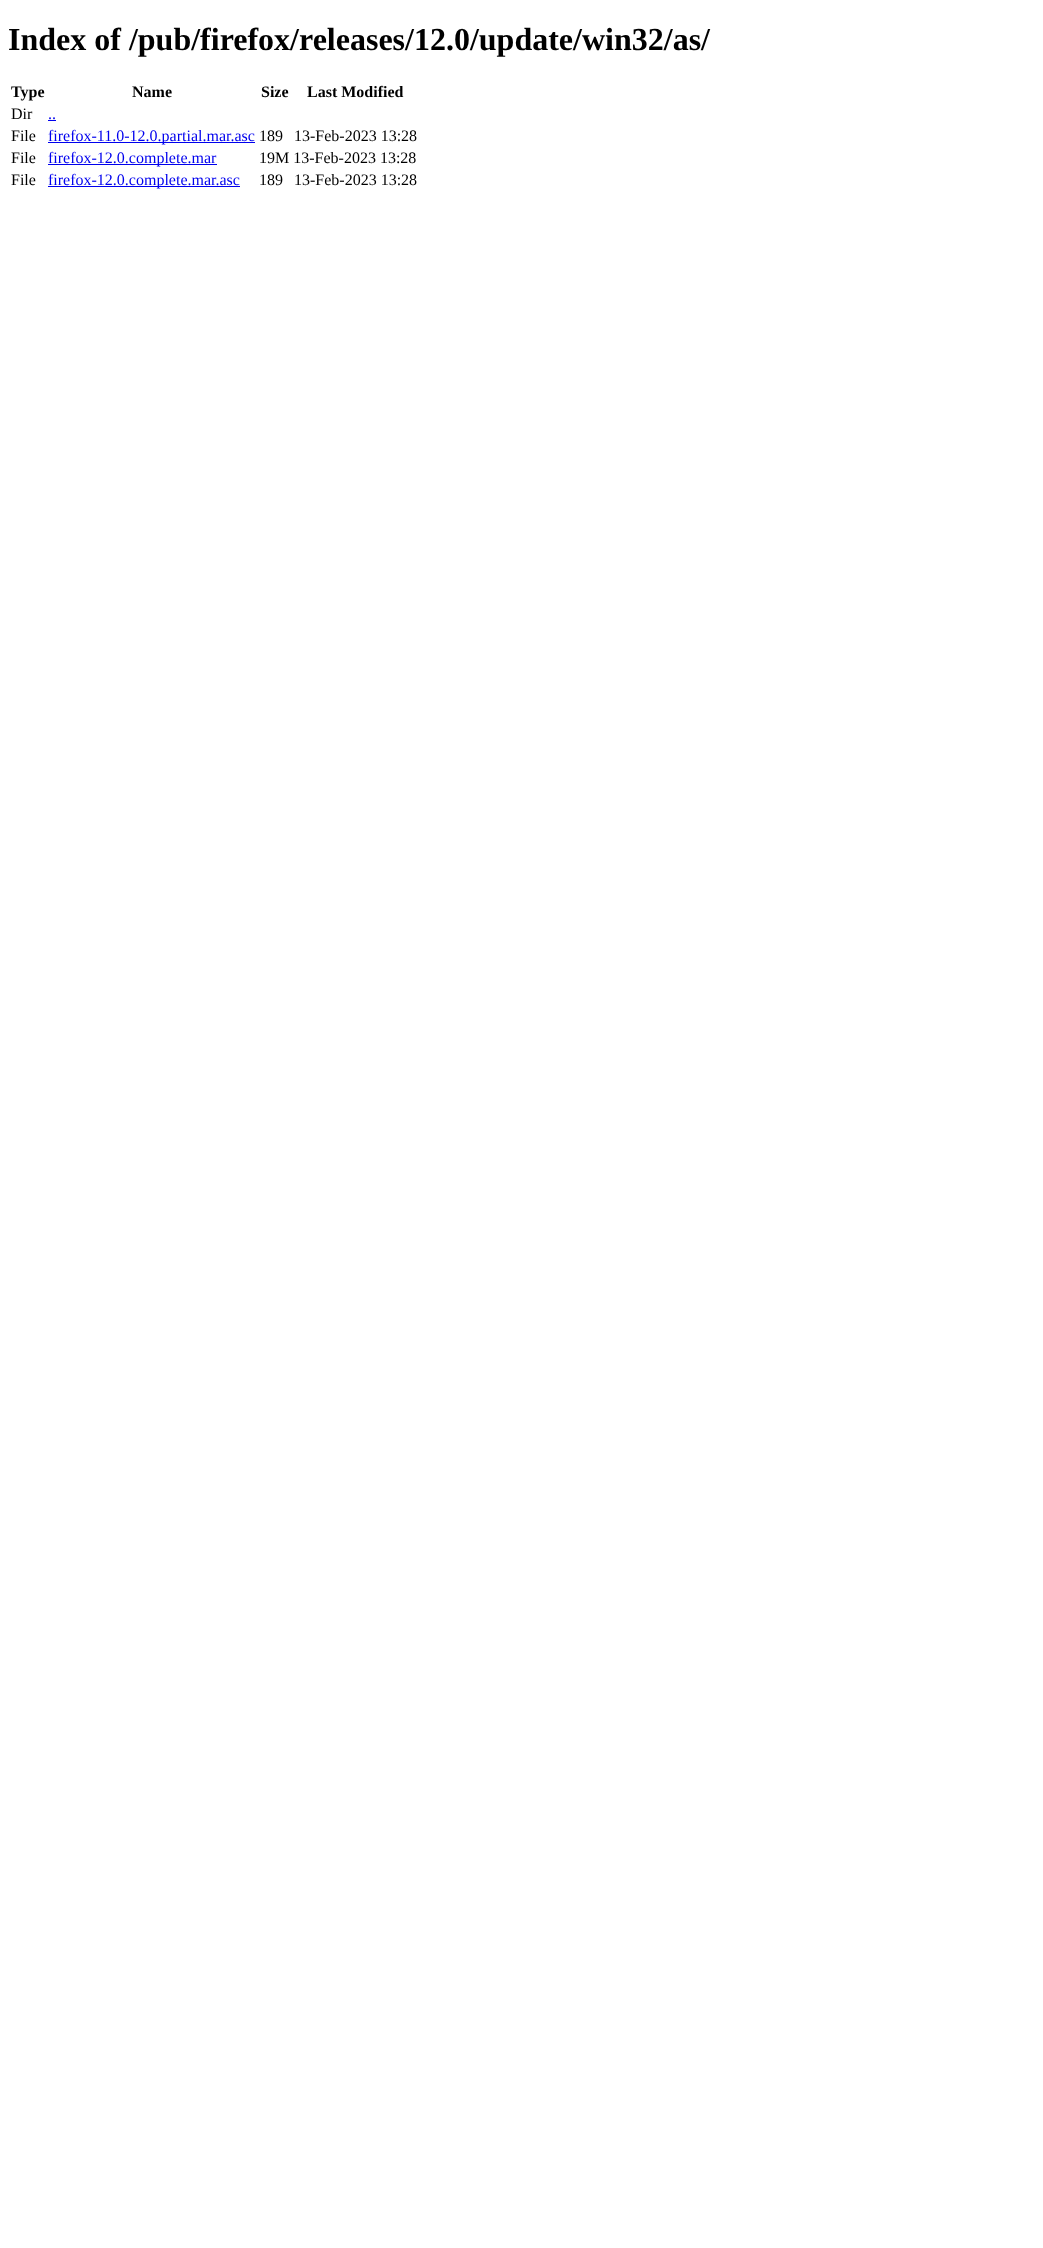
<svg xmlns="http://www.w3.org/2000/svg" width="1043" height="2248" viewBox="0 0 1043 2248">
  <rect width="100%" height="100%" fill="#ffffff"/>
  <text x="8" y="50" font-family="Liberation Serif" font-size="32" font-weight="bold" fill="#000000">Index of /pub/firefox/releases/12.0/update/win32/as/</text>
  <text x="11" y="97" font-family="Liberation Serif" font-size="16" font-weight="bold" fill="#000000">Type</text>
  <text x="132" y="97" font-family="Liberation Serif" font-size="16" font-weight="bold" fill="#000000">Name</text>
  <text x="261" y="97" font-family="Liberation Serif" font-size="16" font-weight="bold" fill="#000000">Size</text>
  <text x="307" y="97" font-family="Liberation Serif" font-size="16" font-weight="bold" fill="#000000">Last Modified</text>
  <text x="11" y="119" font-family="Liberation Serif" font-size="16" fill="#000000">Dir</text>
  <text x="48" y="119" font-family="Liberation Serif" font-size="16" fill="#0000ee">..</text>
  <rect x="48" y="120" width="8" height="1" fill="#0000ee"/>
  <text x="11" y="141" font-family="Liberation Serif" font-size="16" fill="#000000">File</text>
  <rect x="48" y="142" width="207" height="1" fill="#0000ee"/>
  <text x="48" y="141" font-family="Liberation Serif" font-size="16" fill="#0000ee">firefox-11.0-12.0.partial.mar.asc</text>
  <text x="259" y="141" font-family="Liberation Serif" font-size="16" fill="#000000">189</text>
  <text x="294" y="141" font-family="Liberation Serif" font-size="16" fill="#000000">13-Feb-2023 13:28</text>
  <text x="11" y="163" font-family="Liberation Serif" font-size="16" fill="#000000">File</text>
  <rect x="48" y="164" width="169" height="1" fill="#0000ee"/>
  <text x="48" y="163" font-family="Liberation Serif" font-size="16" fill="#0000ee">firefox-12.0.complete.mar</text>
  <text x="259" y="163" font-family="Liberation Serif" font-size="16" fill="#000000">19M 13-Feb-2023 13:28</text>
  <text x="11" y="185" font-family="Liberation Serif" font-size="16" fill="#000000">File</text>
  <rect x="48" y="186" width="192" height="1" fill="#0000ee"/>
  <text x="48" y="185" font-family="Liberation Serif" font-size="16" fill="#0000ee">firefox-12.0.complete.mar.asc</text>
  <text x="259" y="185" font-family="Liberation Serif" font-size="16" fill="#000000">189</text>
  <text x="294" y="185" font-family="Liberation Serif" font-size="16" fill="#000000">13-Feb-2023 13:28</text>
</svg>
